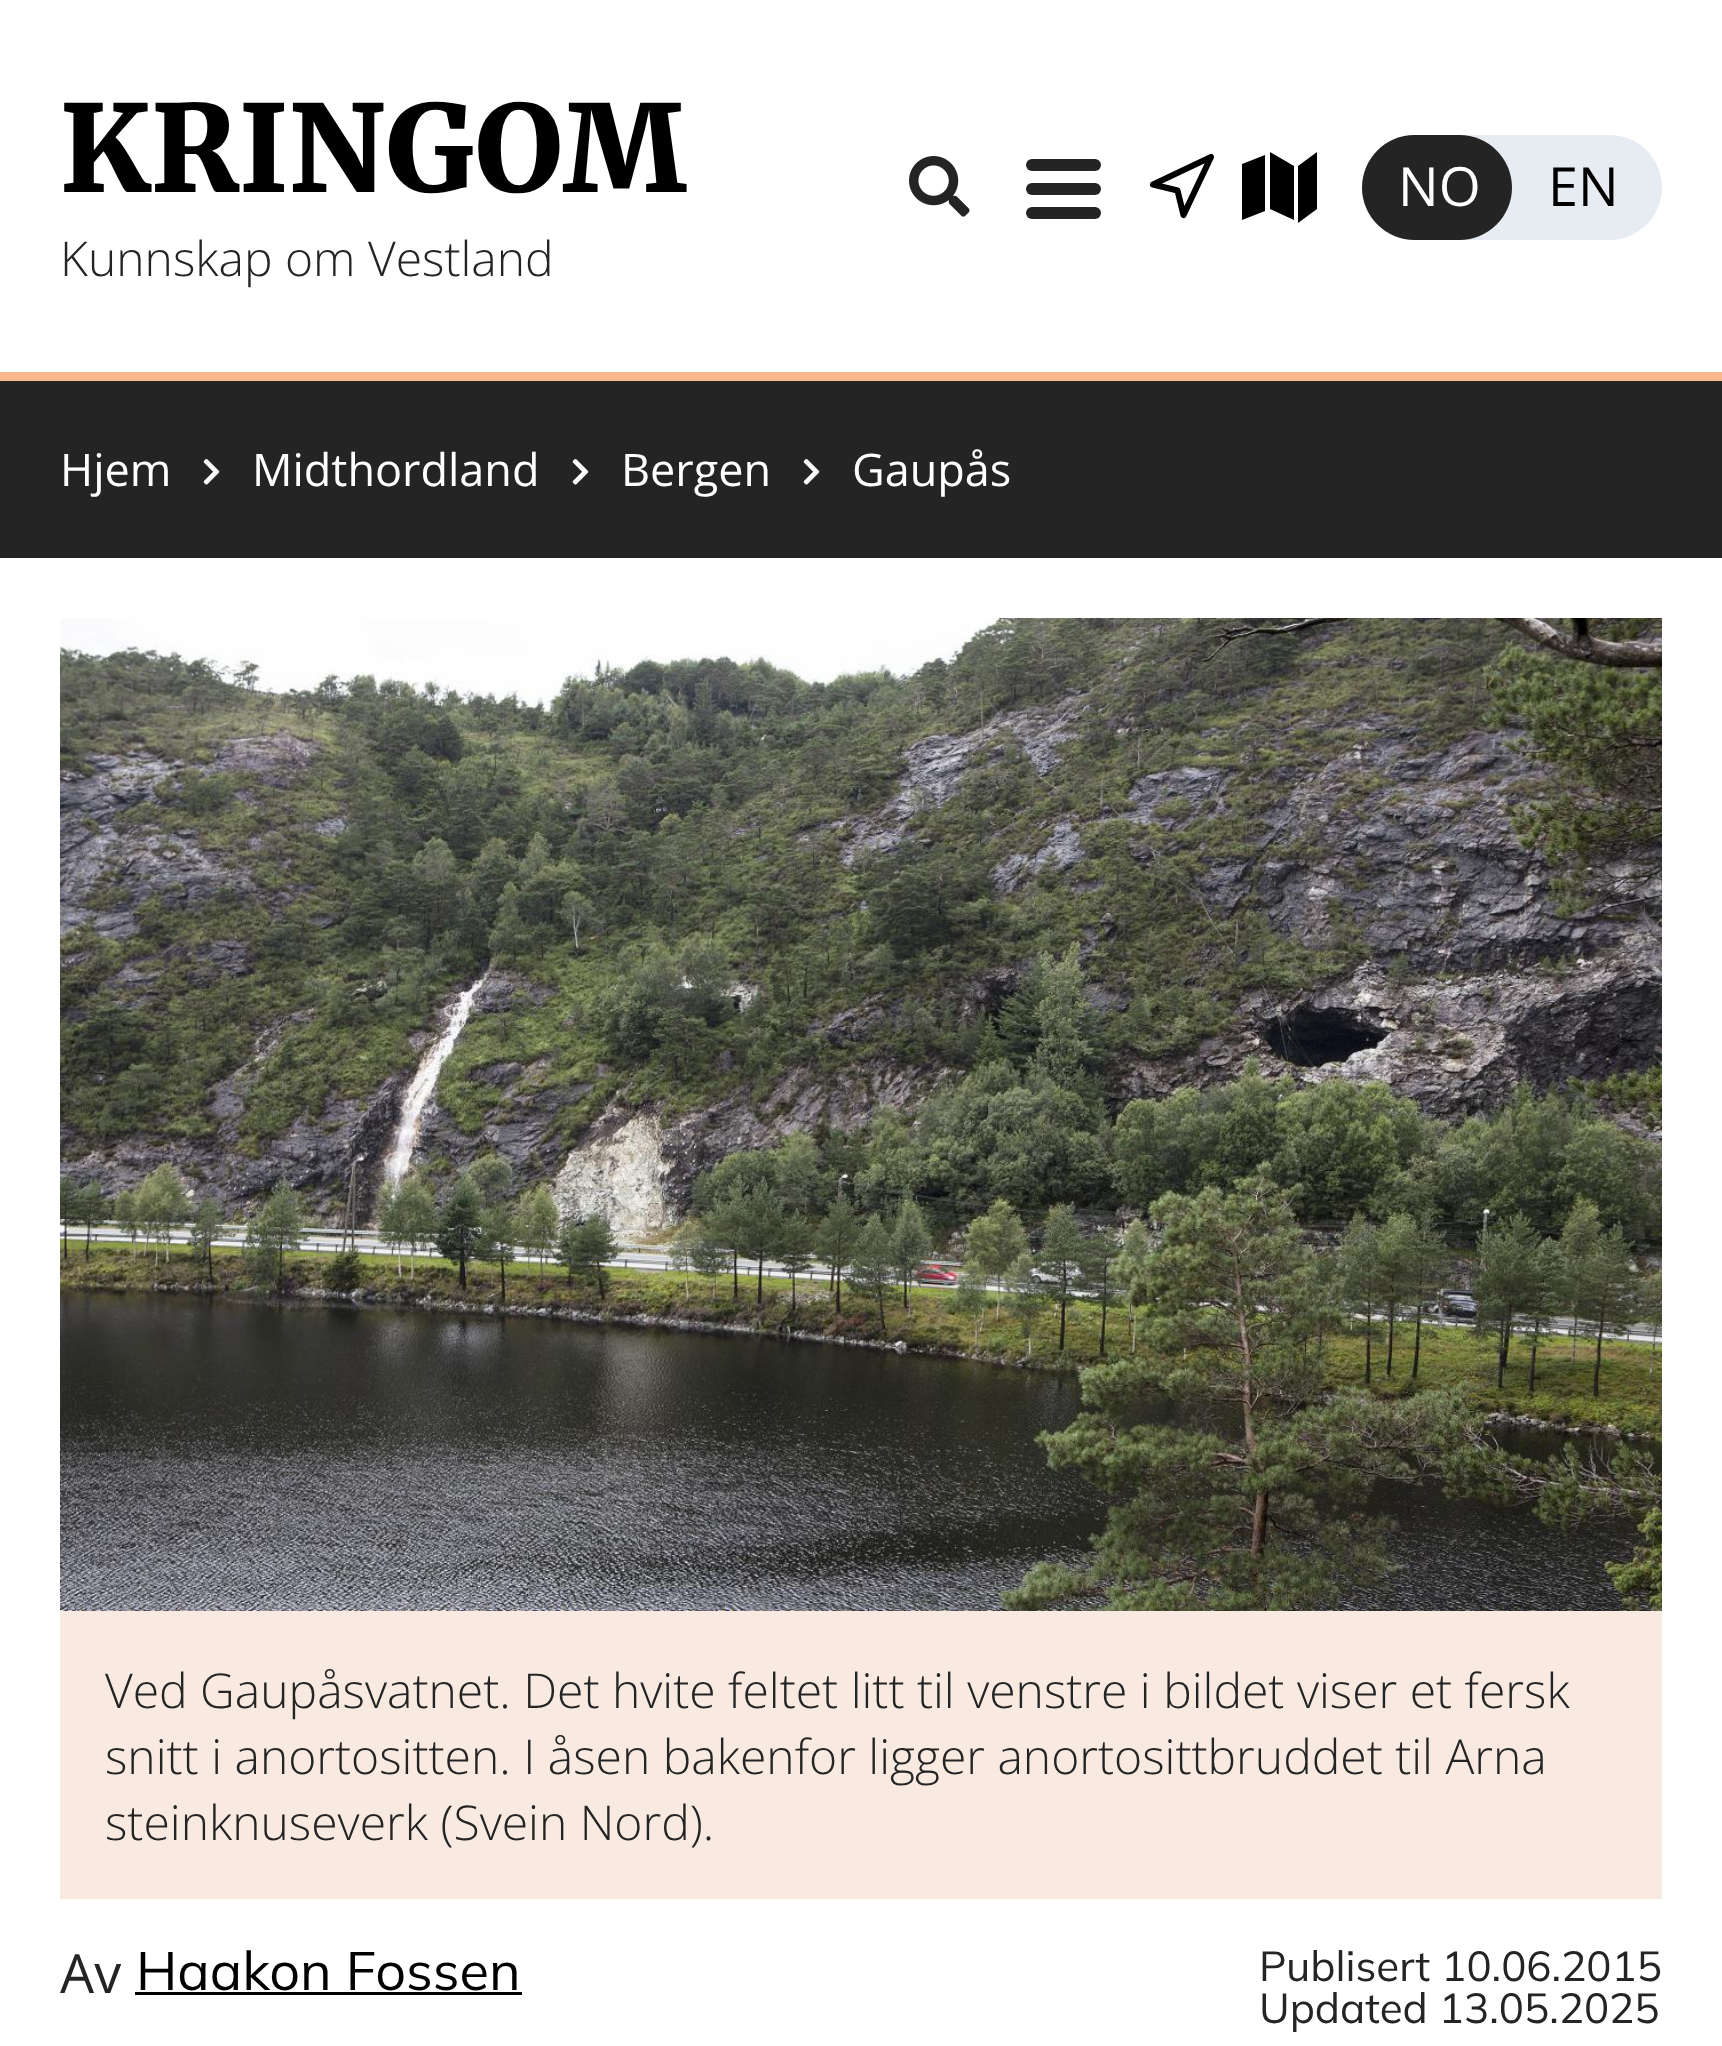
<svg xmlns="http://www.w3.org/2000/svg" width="1722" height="2046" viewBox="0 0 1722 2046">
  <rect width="100%" height="100%" fill="#ffffff"/>
  <rect x="0" y="372" width="1722" height="9" fill="#f8b88b"/>
  <text x="60" y="192" font-family="Merriweather" font-size="120" font-weight="900" fill="#000000">KRINGOM</text>
  <text x="60" y="276" font-family="Open Sans" font-size="48" font-weight="300" fill="#242424">Kunnskap om Vestland</text>
  <image x="909" y="156" width="61" height="61" href="img1.png"/>
  <rect x="1026" y="159" width="75" height="12" rx="6" fill="#242424"/>
  <rect x="1026" y="183" width="75" height="12" rx="6" fill="#242424"/>
  <rect x="1026" y="207" width="75" height="12" rx="6" fill="#242424"/>
  <path d="M1153 184.5L1211 157L1183.5 215L1177.5 190.5Z" fill="none" stroke="#000000" stroke-width="6.1" stroke-linecap="round" stroke-linejoin="round"/>
  <path d="M1242 164L1265 155V211L1242 220Z" fill="#000000"/>
  <path d="M1270 152L1294 166V220L1270 209Z" fill="#000000"/>
  <path d="M1298 166L1317 152V209L1298 223Z" fill="#000000"/>
  <rect x="1362" y="135" width="300" height="105" rx="52.5" fill="#e6ecf1"/>
  <rect x="1362" y="135" width="150" height="105" rx="52.5" fill="#242424"/>
  <text x="1398" y="206" font-family="Open Sans" font-size="54" fill="#ffffff">NO</text>
  <text x="1548" y="206" font-family="Open Sans" font-size="54" fill="#000000">EN</text>
  <rect x="0" y="381" width="1722" height="177" fill="#242424"/>
  <text x="60" y="486" font-family="Open Sans" font-size="45" fill="#ffffff">Hjem</text>
  <image x="203" y="459" width="17" height="26" href="img2.png"/>
  <text x="252" y="486" font-family="Open Sans" font-size="45" fill="#ffffff">Midthordland</text>
  <image x="572" y="459" width="17" height="26" href="img2.png"/>
  <text x="621" y="486" font-family="Open Sans" font-size="45" fill="#ffffff">Bergen</text>
  <image x="803" y="459" width="17" height="26" href="img2.png"/>
  <text x="852" y="486" font-family="Open Sans" font-size="45" fill="#ffffff">Gaupås</text>
  <image x="60" y="618" width="1602" height="993" href="img3.png"/>
  <rect x="60" y="1611" width="1602" height="288" fill="#f8eae1"/>
  <text x="105" y="1708" font-family="Open Sans" font-size="48" font-weight="300" fill="#242424">Ved Gaupåsvatnet. Det hvite feltet litt til venstre i bildet viser et fersk</text>
  <text x="105" y="1774" font-family="Open Sans" font-size="48" font-weight="300" fill="#242424">snitt i anortositten. I åsen bakenfor ligger anortosittbruddet til Arna</text>
  <text x="105" y="1840" font-family="Open Sans" font-size="48" font-weight="300" fill="#242424">steinknuseverk (Svein Nord).</text>
  <text x="60" y="1993" font-family="Open Sans" font-size="54" fill="#242424">Av</text>
  <text x="136" y="1990" font-family="Mulish" font-size="54" fill="#000000">Haakon Fossen</text>
  <rect x="135" y="1992" width="387" height="3" fill="#000000"/>
  <text x="1259" y="1981" font-family="Mulish" font-size="42" fill="#242424">Publisert 10.06.2015</text>
  <text x="1259" y="2023" font-family="Mulish" font-size="42" fill="#242424">Updated 13.05.2025</text>
</svg>
